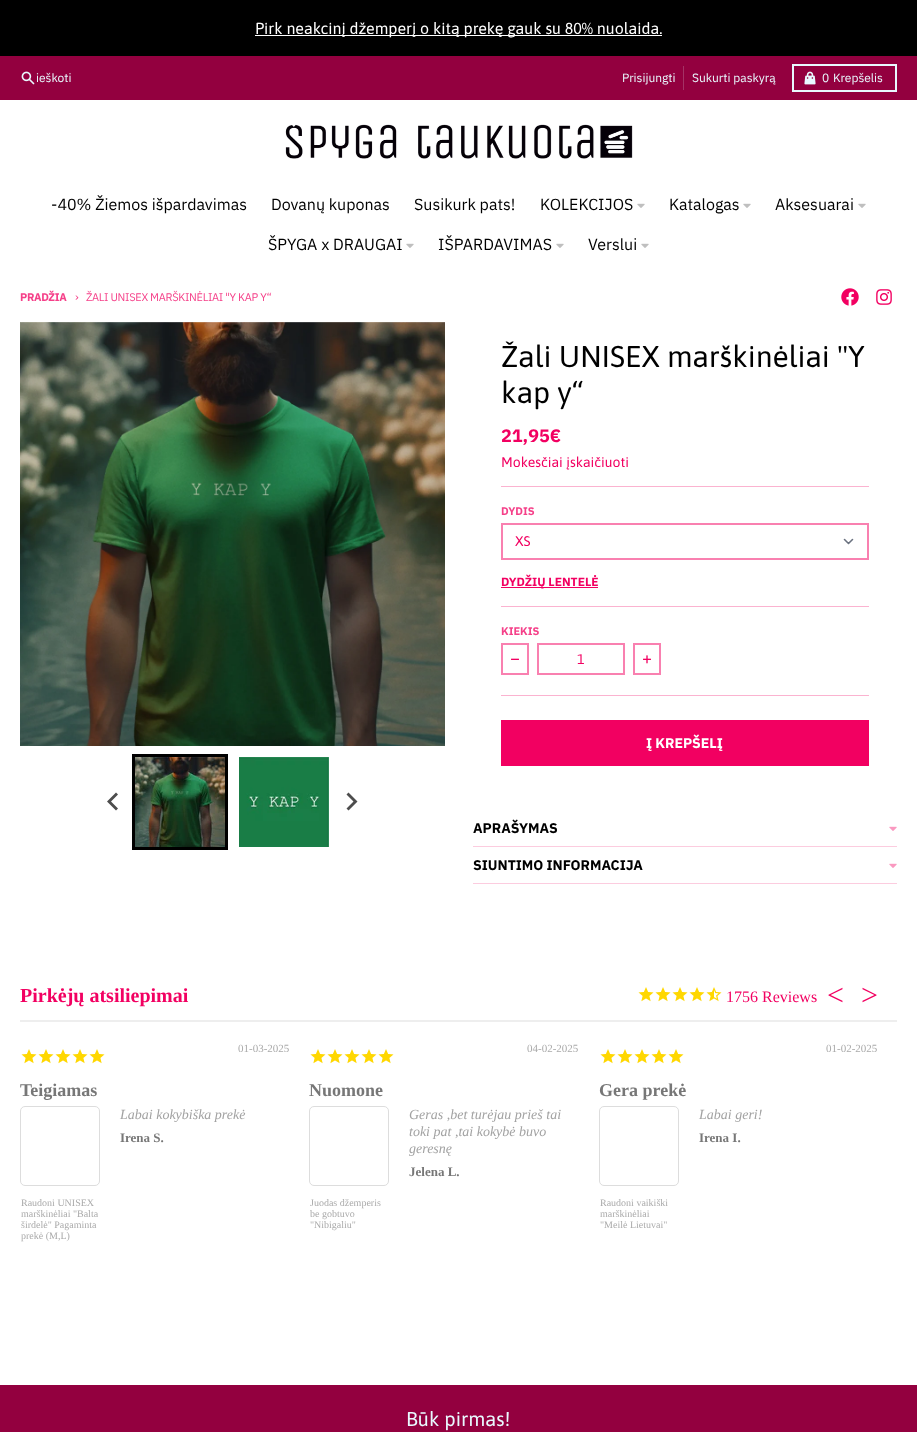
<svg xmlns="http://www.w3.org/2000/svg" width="917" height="1432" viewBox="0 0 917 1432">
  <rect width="100%" height="100%" fill="#93003f"/>
  <rect x="0" y="0" width="917" height="56" fill="#000000"/>
  <rect x="255" y="35" width="407" height="1" fill="#ffffff"/>
  <text x="255" y="34" font-family="Asap" font-size="16" fill="#ffffff">Pirk neakcinį džemperį o kitą prekę gauk su 80% nuolaida.</text>
  <image x="21" y="71" width="14" height="14" href="img1.png"/>
  <text x="36" y="82" font-family="IBM Plex Sans" font-size="12" fill="#e9f9ff">ieškoti</text>
  <text x="622" y="82" font-family="IBM Plex Sans" font-size="12" fill="#e9f9ff">Prisijungti</text>
  <rect x="683" y="66" width="1" height="24" fill="#a43265"/>
  <text x="692" y="82" font-family="IBM Plex Sans" font-size="12" fill="#e9f9ff">Sukurti paskyrą</text>
  <rect x="793" y="65" width="103" height="26" fill="none" stroke="#e9f9ff" stroke-width="2"/>
  <image x="804" y="71" width="12" height="14" href="img2.png"/>
  <text x="822" y="82" font-family="IBM Plex Sans" font-size="12" fill="#e9f9ff">0</text>
  <text x="833" y="82" font-family="IBM Plex Sans" font-size="12" fill="#e9f9ff">Krepšelis</text>
  <rect x="0" y="100" width="917" height="1285" fill="#ffffff"/>
  <image x="285" y="124" width="348" height="35" href="img3.png"/>
  <text x="51" y="210" font-family="IBM Plex Sans" font-size="16" fill="#000000">-40% Žiemos išpardavimas</text>
  <text x="271" y="210" font-family="IBM Plex Sans" font-size="16" fill="#000000">Dovanų kuponas</text>
  <text x="414" y="210" font-family="IBM Plex Sans" font-size="16" fill="#000000">Susikurk pats!</text>
  <text x="540" y="210" font-family="IBM Plex Sans" font-size="16" fill="#000000">KOLEKCIJOS</text>
  <image x="637" y="203" width="8" height="5" href="img4.png"/>
  <text x="669" y="210" font-family="IBM Plex Sans" font-size="16" fill="#000000">Katalogas</text>
  <image x="743" y="203" width="8" height="5" href="img4.png"/>
  <text x="775" y="210" font-family="IBM Plex Sans" font-size="16" fill="#000000">Aksesuarai</text>
  <image x="858" y="203" width="8" height="5" href="img4.png"/>
  <text x="268" y="250" font-family="IBM Plex Sans" font-size="16" fill="#000000">ŠPYGA x DRAUGAI</text>
  <image x="406" y="243" width="8" height="5" href="img4.png"/>
  <text x="438" y="250" font-family="IBM Plex Sans" font-size="16" fill="#000000">IŠPARDAVIMAS</text>
  <image x="556" y="243" width="8" height="5" href="img4.png"/>
  <text x="588" y="250" font-family="IBM Plex Sans" font-size="16" fill="#000000">Verslui</text>
  <image x="641" y="243" width="8" height="5" href="img4.png"/>
  <text x="20" y="301" font-family="IBM Plex Sans" font-size="11" font-weight="bold" letter-spacing="-0.3" fill="#f54089">PRADŽIA</text>
  <text x="75" y="301" font-family="IBM Plex Sans" font-size="12" letter-spacing="-0.3" fill="#f54089">›</text>
  <text x="86" y="301" font-family="IBM Plex Sans" font-size="11" letter-spacing="-0.3" fill="#f54089">ŽALI UNISEX MARŠKINĖLIAI "Y KAP Y“</text>
  <image x="841" y="288" width="18" height="18" href="img5.png"/>
  <image x="876" y="289" width="16" height="16" href="img6.png"/>
  <image x="20" y="322" width="425" height="424" href="img7.png"/>
  <rect x="133.5" y="755.5" width="93" height="93" fill="none" stroke="#000000" stroke-width="3"/>
  <image x="135" y="757" width="90" height="90" href="img8.png"/>
  <image x="239" y="757" width="90" height="90" href="img9.png"/>
  <path d="M116 792.5L118 794.5L111 801.5L118 808.5L116 810.5L107 801.5Z" fill="#4d4d4d"/>
  <path d="M348.5 792.5L346.5 794.5L353.5 801.5L346.5 808.5L348.5 810.5L357.5 801.5Z" fill="#4d4d4d"/>
  <text x="501" y="367" font-family="Asap" font-size="30" fill="#000000">Žali UNISEX marškinėliai "Y</text>
  <text x="501" y="403" font-family="Asap" font-size="30" fill="#000000">kap y“</text>
  <text x="501" y="442" font-family="IBM Plex Sans" font-size="18" font-weight="bold" fill="#f20061">21,95€</text>
  <text x="501" y="467" font-family="Asap" font-size="14" fill="#f20061">Mokesčiai įskaičiuoti</text>
  <rect x="501" y="486" width="368" height="1" fill="#fbb3d0"/>
  <text x="501" y="515" font-family="IBM Plex Sans" font-size="11" font-weight="bold" fill="#f54089">DYDIS</text>
  <path d="M844.5 539.5L848.5 543.5L852.5 539.5" fill="none" stroke="#6b7280" stroke-width="1.6" stroke-linecap="round" stroke-linejoin="round"/>
  <rect x="502" y="524" width="366" height="35" fill="none" stroke="#f980b0" stroke-width="2"/>
  <text x="515" y="546" font-family="Asap" font-size="14" fill="#f20061">XS</text>
  <rect x="501" y="587" width="97" height="1" fill="#f20061"/>
  <text x="501" y="586" font-family="IBM Plex Sans" font-size="12" font-weight="bold" fill="#f20061">DYDŽIŲ LENTELĖ</text>
  <rect x="501" y="606" width="368" height="1" fill="#fbb3d0"/>
  <text x="501" y="635" font-family="IBM Plex Sans" font-size="11" font-weight="bold" fill="#f54089">KIEKIS</text>
  <rect x="502" y="644" width="26" height="30" fill="none" stroke="#f980b0" stroke-width="2"/>
  <image x="511" y="658" width="8" height="2" href="img10.png"/>
  <rect x="538" y="644" width="86" height="30" fill="none" stroke="#f980b0" stroke-width="2"/>
  <text x="577" y="664" font-family="Asap" font-size="14" fill="#f20061">1</text>
  <rect x="634" y="644" width="26" height="30" fill="none" stroke="#f980b0" stroke-width="2"/>
  <image x="643" y="655" width="8" height="9" href="img11.png"/>
  <rect x="501" y="695" width="368" height="1" fill="#fbb3d0"/>
  <rect x="501" y="720" width="368" height="46" fill="#f20061"/>
  <text x="646" y="748" font-family="IBM Plex Sans" font-size="14" font-weight="bold" fill="#ffffff">Į KREPŠELĮ</text>
  <rect x="473" y="846" width="424" height="1" fill="#fcccdf"/>
  <text x="473" y="833" font-family="IBM Plex Sans" font-size="14" font-weight="bold" fill="#000000">APRAŠYMAS</text>
  <image x="889" y="826" width="8" height="5" href="img12.png"/>
  <rect x="473" y="883" width="424" height="1" fill="#fcccdf"/>
  <text x="473" y="870" font-family="IBM Plex Sans" font-size="14" font-weight="bold" fill="#000000">SIUNTIMO INFORMACIJA</text>
  <image x="889" y="863" width="8" height="5" href="img12.png"/>
  <text x="20" y="1002" font-family="Liberation Serif" font-size="20" font-weight="bold" fill="#f20061">Pirkėjų atsiliepimai</text>
  <image x="638" y="987" width="16" height="15" href="img13.png"/>
  <image x="655" y="987" width="16" height="15" href="img13.png"/>
  <image x="672" y="987" width="16" height="15" href="img13.png"/>
  <image x="689" y="987" width="16" height="15" href="img13.png"/>
  <image x="706" y="987" width="16" height="15" href="img14.png"/>
  <text x="726" y="1002" font-family="Liberation Serif" font-size="16" fill="#f20061">1756 Reviews</text>
  <text x="827" y="1005" font-family="Liberation Serif" font-size="30" fill="#f20061">&lt;</text>
  <text x="861" y="1005" font-family="Liberation Serif" font-size="30" fill="#f20061">&gt;</text>
  <rect x="20" y="1020" width="877" height="2" fill="#eeeeee"/>
  <text x="238" y="1052" font-family="Liberation Serif" font-size="11" fill="#aaaaaa">01-03-2025</text>
  <image x="21" y="1049" width="16" height="15" href="img13.png"/>
  <image x="38" y="1049" width="16" height="15" href="img13.png"/>
  <image x="55" y="1049" width="16" height="15" href="img13.png"/>
  <image x="72" y="1049" width="16" height="15" href="img13.png"/>
  <image x="89" y="1049" width="16" height="15" href="img13.png"/>
  <text x="20" y="1096" font-family="Liberation Serif" font-size="18" font-weight="bold" fill="#777777">Teigiamas</text>
  <text x="120" y="1119" font-family="Liberation Serif" font-size="14" font-style="italic" fill="#a2a2a2">Labai kokybiška prekė</text>
  <text x="120" y="1142" font-family="Liberation Serif" font-size="13" font-weight="bold" fill="#777777">Irena S.</text>
  <rect x="20.5" y="1106.5" width="79" height="79" rx="4.5" fill="none" stroke="#dddddd"/>
  <text x="21" y="1206" font-family="Liberation Serif" font-size="10" fill="#aaaaaa">Raudoni UNISEX</text>
  <text x="21" y="1217" font-family="Liberation Serif" font-size="10" fill="#aaaaaa">marškinėliai "Balta</text>
  <text x="21" y="1228" font-family="Liberation Serif" font-size="10" fill="#aaaaaa">širdelė" Pagaminta</text>
  <text x="21" y="1239" font-family="Liberation Serif" font-size="10" fill="#aaaaaa">prekė (M,L)</text>
  <text x="527" y="1052" font-family="Liberation Serif" font-size="11" fill="#aaaaaa">04-02-2025</text>
  <image x="310" y="1049" width="16" height="15" href="img13.png"/>
  <image x="327" y="1049" width="16" height="15" href="img13.png"/>
  <image x="344" y="1049" width="16" height="15" href="img13.png"/>
  <image x="361" y="1049" width="16" height="15" href="img13.png"/>
  <image x="378" y="1049" width="16" height="15" href="img13.png"/>
  <text x="309" y="1096" font-family="Liberation Serif" font-size="18" font-weight="bold" fill="#777777">Nuomone</text>
  <text x="409" y="1119" font-family="Liberation Serif" font-size="14" font-style="italic" fill="#a2a2a2">Geras ,bet turėjau prieš tai</text>
  <text x="409" y="1136" font-family="Liberation Serif" font-size="14" font-style="italic" fill="#a2a2a2">toki pat ,tai kokybė buvo</text>
  <text x="409" y="1153" font-family="Liberation Serif" font-size="14" font-style="italic" fill="#a2a2a2">geresnę</text>
  <text x="409" y="1176" font-family="Liberation Serif" font-size="13" font-weight="bold" fill="#777777">Jelena L.</text>
  <rect x="309.5" y="1106.5" width="79" height="79" rx="4.5" fill="none" stroke="#dddddd"/>
  <text x="310" y="1206" font-family="Liberation Serif" font-size="10" fill="#aaaaaa">Juodas džemperis</text>
  <text x="310" y="1217" font-family="Liberation Serif" font-size="10" fill="#aaaaaa">be gobtuvo</text>
  <text x="310" y="1228" font-family="Liberation Serif" font-size="10" fill="#aaaaaa">"Nibigaliu"</text>
  <text x="826" y="1052" font-family="Liberation Serif" font-size="11" fill="#aaaaaa">01-02-2025</text>
  <image x="600" y="1049" width="16" height="15" href="img13.png"/>
  <image x="617" y="1049" width="16" height="15" href="img13.png"/>
  <image x="634" y="1049" width="16" height="15" href="img13.png"/>
  <image x="651" y="1049" width="16" height="15" href="img13.png"/>
  <image x="668" y="1049" width="16" height="15" href="img13.png"/>
  <text x="599" y="1096" font-family="Liberation Serif" font-size="18" font-weight="bold" fill="#777777">Gera prekė</text>
  <text x="699" y="1119" font-family="Liberation Serif" font-size="14" font-style="italic" fill="#a2a2a2">Labai geri!</text>
  <text x="699" y="1142" font-family="Liberation Serif" font-size="13" font-weight="bold" fill="#777777">Irena I.</text>
  <rect x="599.5" y="1106.5" width="79" height="79" rx="4.5" fill="none" stroke="#dddddd"/>
  <text x="600" y="1206" font-family="Liberation Serif" font-size="10" fill="#aaaaaa">Raudoni vaikiški</text>
  <text x="600" y="1217" font-family="Liberation Serif" font-size="10" fill="#aaaaaa">marškinėliai</text>
  <text x="600" y="1228" font-family="Liberation Serif" font-size="10" fill="#aaaaaa">"Meilė Lietuvai"</text>
  <text x="406" y="1426" font-family="Asap" font-size="20" fill="#e9f9ff">Būk pirmas!</text>
</svg>
